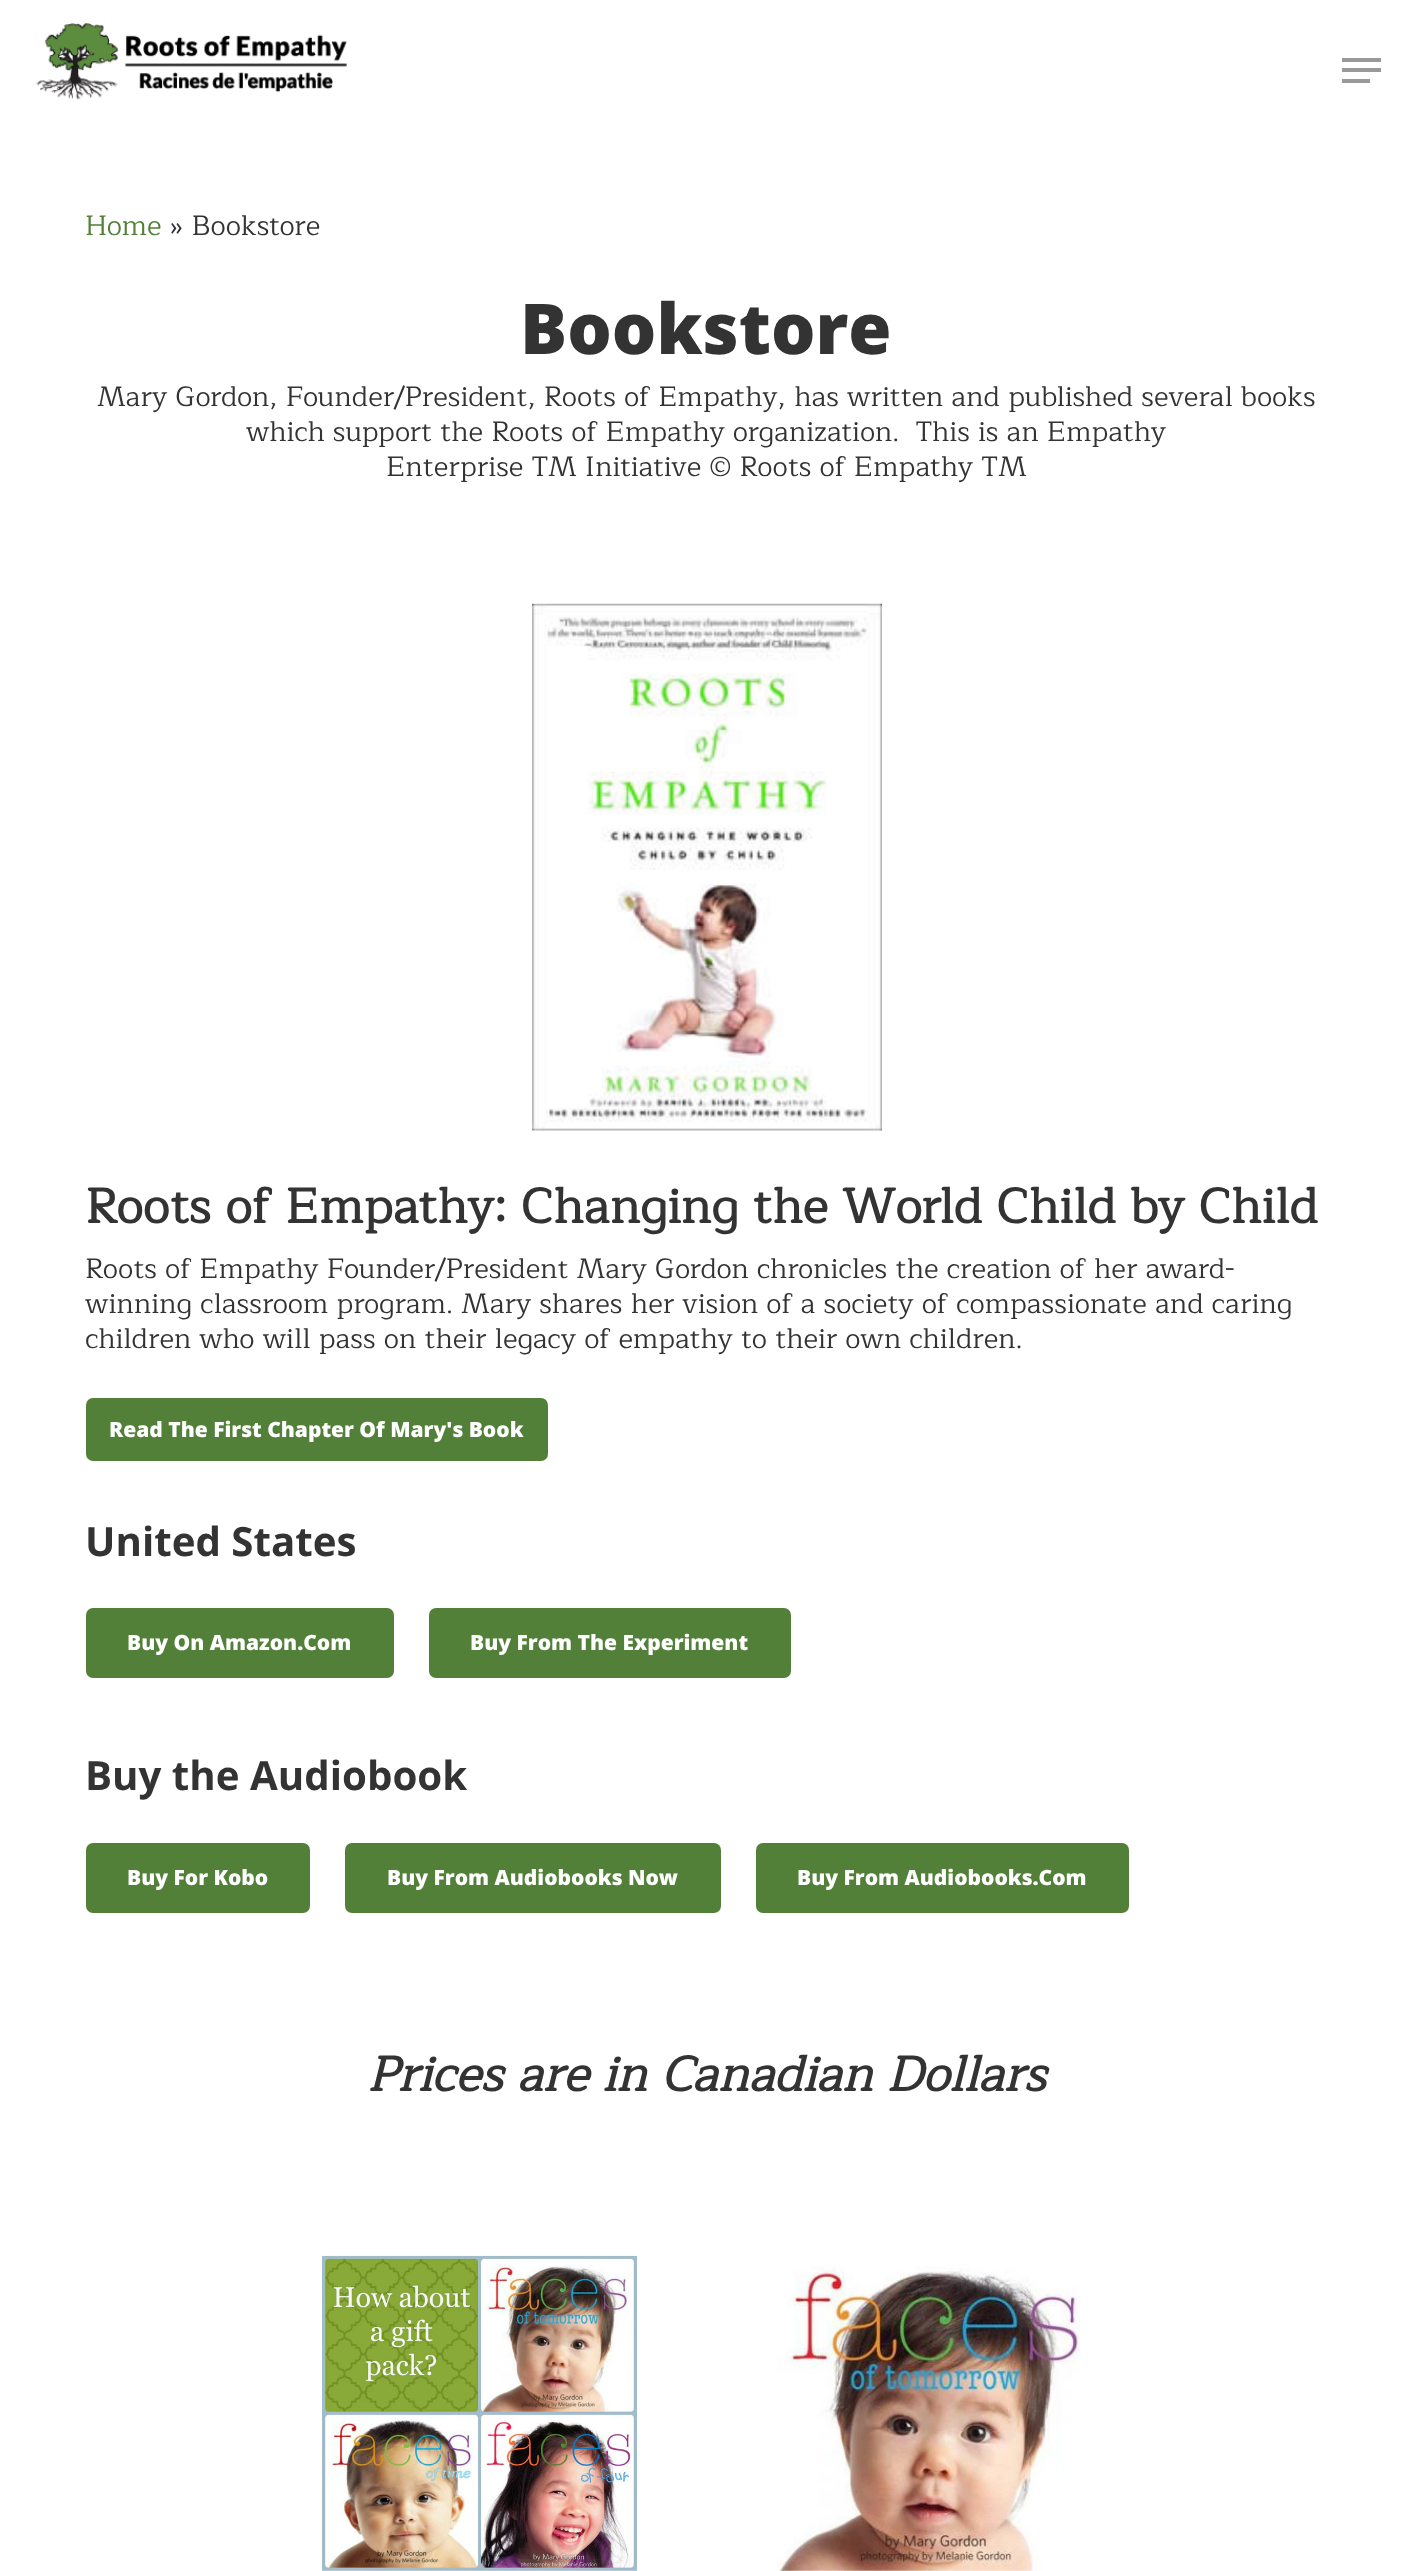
<svg xmlns="http://www.w3.org/2000/svg" width="1411" height="2571" viewBox="0 0 1411 2571">
  <rect width="100%" height="100%" fill="#ffffff"/>
  <image x="36" y="23" width="311" height="77" href="img1.png"/>
  <rect x="1342" y="58" width="39" height="4" fill="#999999"/>
  <rect x="1342" y="79" width="28" height="4" fill="#999999"/>
  <rect x="1342" y="68" width="39" height="4" fill="#999999"/>
  <text x="85" y="235" font-family="Maitree" font-size="28" fill="#528038">Home</text>
  <text x="169" y="235" font-family="Maitree" font-size="28" fill="#333333">» Bookstore</text>
  <text x="520" y="354" font-family="Open Sans" font-size="70" font-weight="800" fill="#333333">Bookstore</text>
  <text x="97" y="406" font-family="Maitree" font-size="28" fill="#333333">Mary Gordon, Founder/President, Roots of Empathy, has written and published several books</text>
  <text x="246" y="441" font-family="Maitree" font-size="28" fill="#333333" xml:space="preserve">which support the Roots of Empathy organization.  This is an Empathy</text>
  <text x="386" y="476" font-family="Maitree" font-size="28" fill="#333333">Enterprise TM Initiative © Roots of Empathy TM</text>
  <image x="532" y="603" width="350" height="528" href="img2.png"/>
  <text x="85" y="1223" font-family="Maitree" font-size="49" font-weight="bold" fill="#333333">Roots of Empathy: Changing the World Child by Child</text>
  <text x="85" y="1278" font-family="Maitree" font-size="28" fill="#333333">Roots of Empathy Founder/President Mary Gordon chronicles the creation of her award-</text>
  <text x="85" y="1313" font-family="Maitree" font-size="28" fill="#333333">winning classroom program. Mary shares her vision of a society of compassionate and caring</text>
  <text x="85" y="1348" font-family="Maitree" font-size="28" fill="#333333">children who will pass on their legacy of empathy to their own children.</text>
  <rect x="86" y="1398" width="462" height="63" rx="7" fill="#528038"/>
  <text x="109" y="1437" font-family="Open Sans" font-size="21" font-weight="800" fill="#ffffff">Read The First Chapter Of Mary's Book</text>
  <text x="85" y="1556" font-family="Open Sans" font-size="40.25" font-weight="bold" fill="#333333">United States</text>
  <rect x="86" y="1608" width="308" height="70" rx="7" fill="#528038"/>
  <text x="127" y="1650" font-family="Open Sans" font-size="21" font-weight="800" fill="#ffffff">Buy On Amazon.Com</text>
  <rect x="429" y="1608" width="362" height="70" rx="7" fill="#528038"/>
  <text x="470" y="1650" font-family="Open Sans" font-size="21" font-weight="800" fill="#ffffff">Buy From The Experiment</text>
  <text x="85" y="1790" font-family="Open Sans" font-size="40.25" font-weight="bold" fill="#333333">Buy the Audiobook</text>
  <rect x="86" y="1843" width="224" height="70" rx="7" fill="#528038"/>
  <text x="127" y="1885" font-family="Open Sans" font-size="21" font-weight="800" fill="#ffffff">Buy For Kobo</text>
  <rect x="345" y="1843" width="376" height="70" rx="7" fill="#528038"/>
  <text x="387" y="1885" font-family="Open Sans" font-size="21" font-weight="800" fill="#ffffff">Buy From Audiobooks Now</text>
  <rect x="756" y="1843" width="373" height="70" rx="7" fill="#528038"/>
  <text x="797" y="1885" font-family="Open Sans" font-size="21" font-weight="800" fill="#ffffff">Buy From Audiobooks.Com</text>
  <text x="367" y="2091" font-family="Maitree" font-size="49" font-weight="bold" font-style="italic" fill="#333333">Prices are in Canadian Dollars</text>
  <image x="322" y="2255" width="758" height="316" href="img3.png"/>
</svg>
